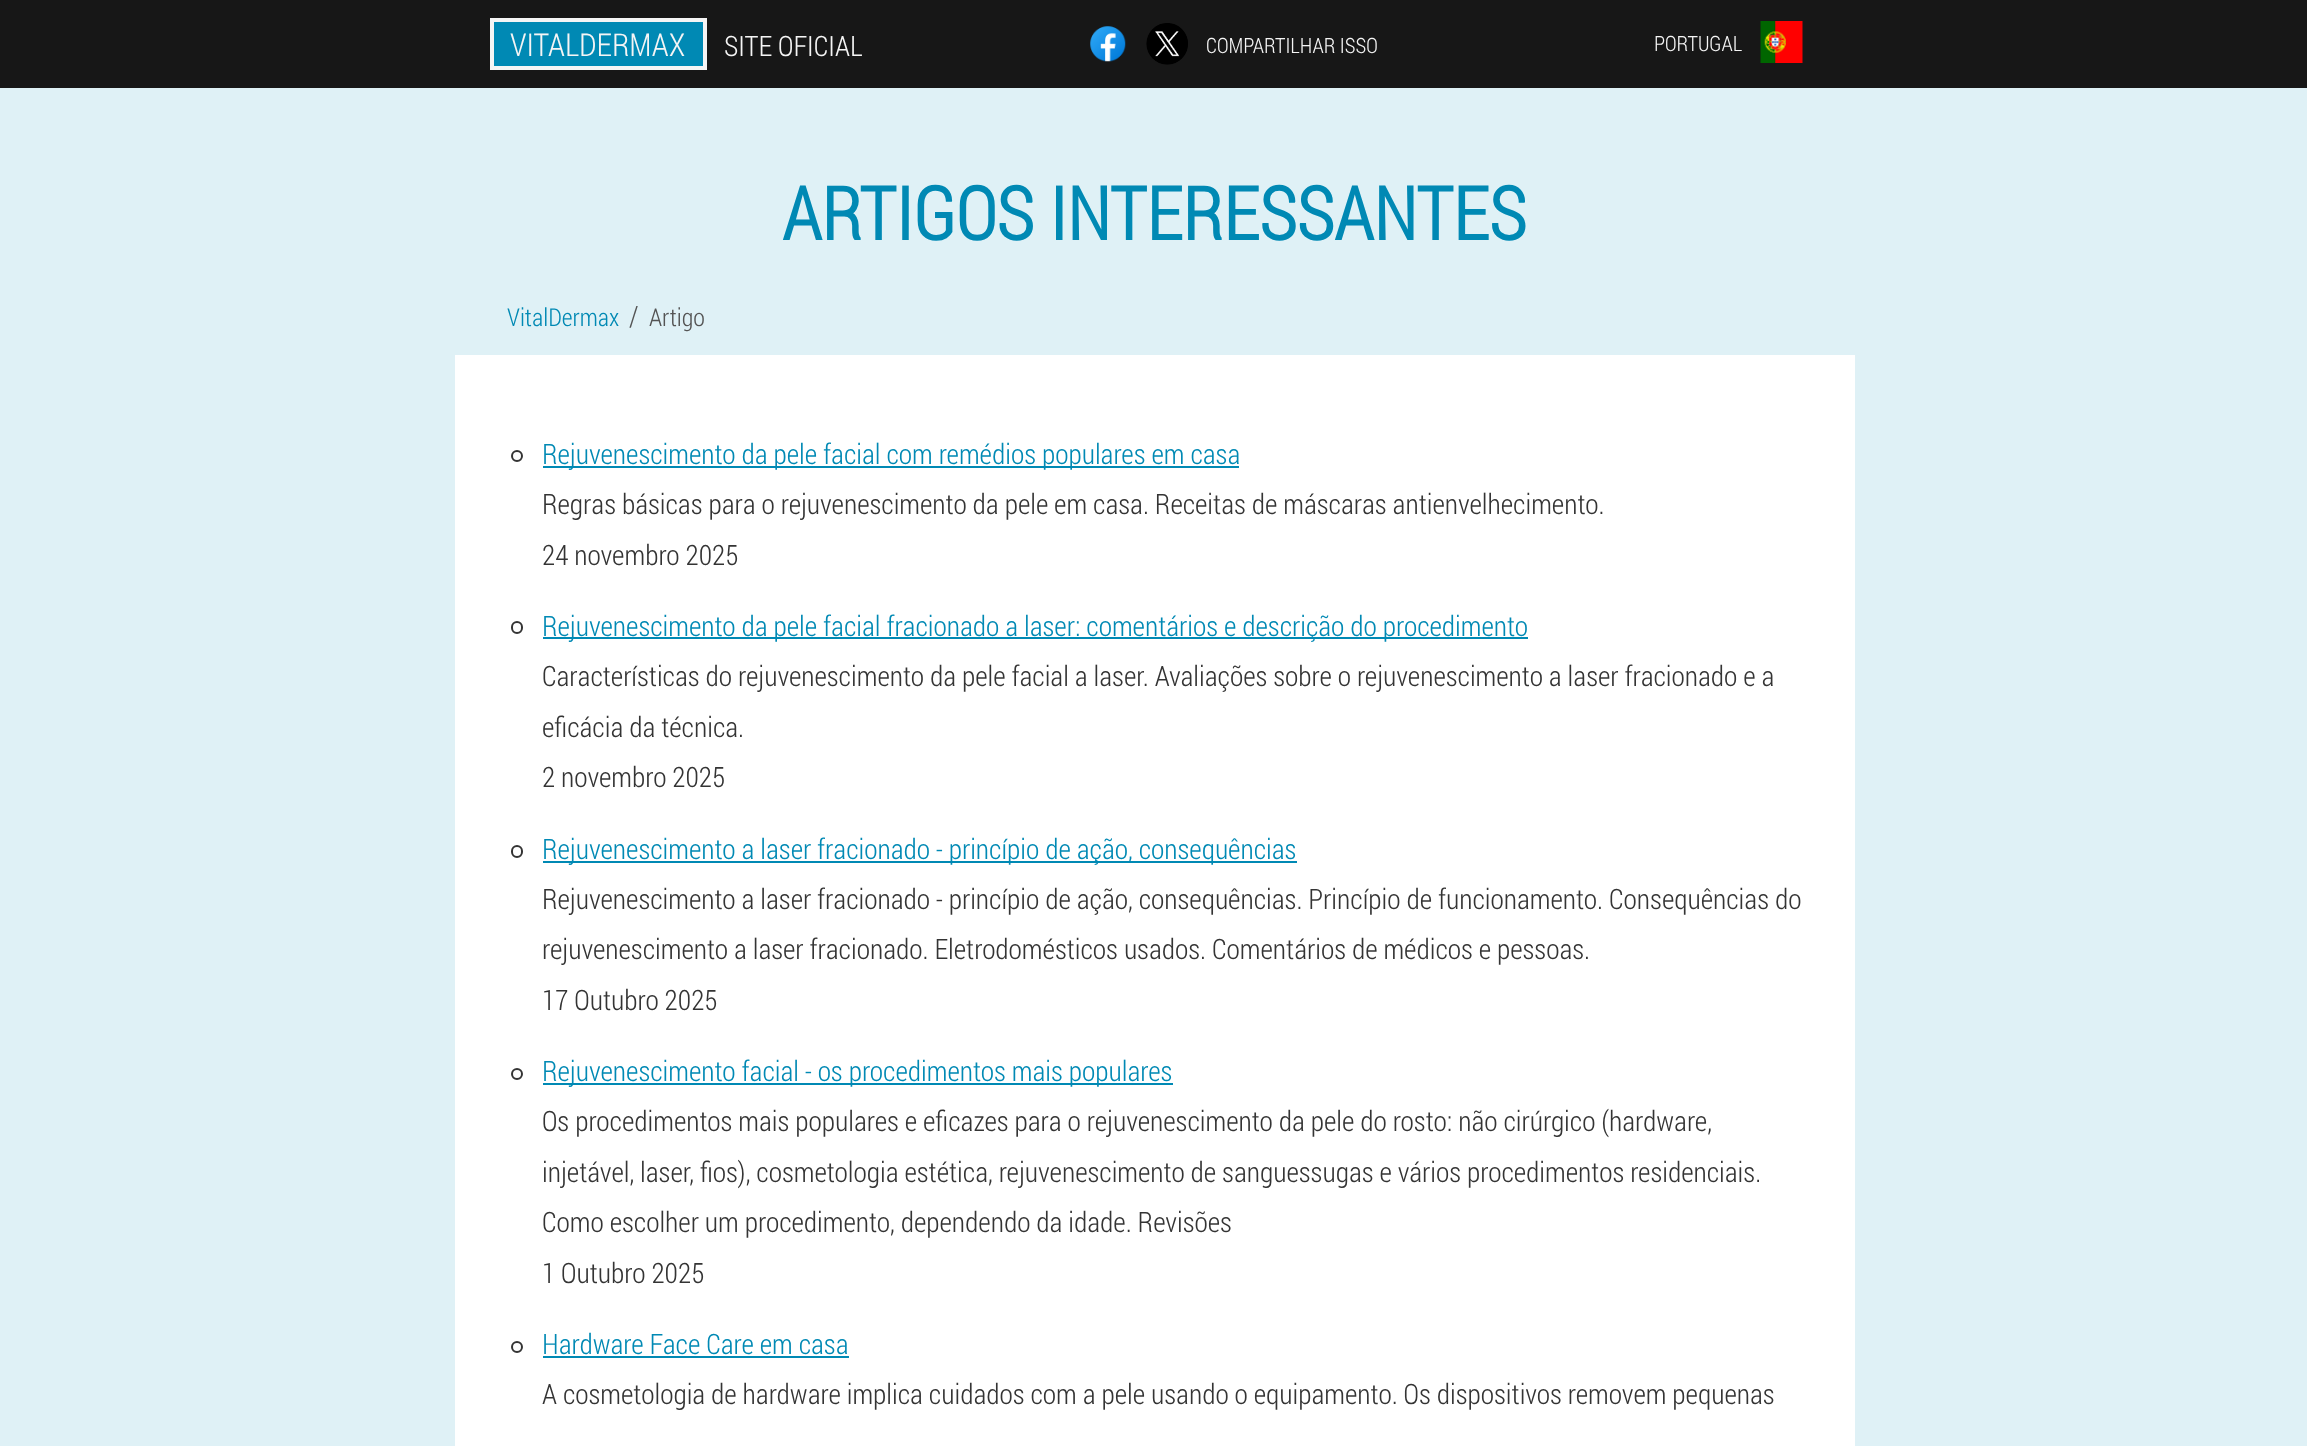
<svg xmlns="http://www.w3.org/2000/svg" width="2307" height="1446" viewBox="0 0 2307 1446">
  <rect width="100%" height="100%" fill="#dff1f6"/>
  <rect x="0" y="0" width="2307" height="88" fill="#171717"/>
  <rect x="492" y="20" width="213" height="48" fill="#0089b4" stroke="#f5f5f5" stroke-width="4"/>
  <text x="510" y="56" font-family="Roboto Condensed" font-size="31.5" font-weight="300" fill="#f5f5f5">VITALDERMAX</text>
  <text x="724" y="56" font-family="Roboto Condensed" font-size="28" font-weight="300" fill="#f5f5f5">SITE OFICIAL</text>
  <image x="1090" y="26" width="36" height="36" href="img1.png"/>
  <image x="1146" y="23" width="42" height="42" href="img2.png"/>
  <text x="1206" y="53" font-family="Roboto Condensed" font-size="21" font-weight="300" fill="#f5f5f5">COMPARTILHAR ISSO</text>
  <text x="1654" y="51" font-family="Roboto Condensed" font-size="21" font-weight="300" fill="#f5f5f5">PORTUGAL</text>
  <image x="1760" y="21" width="43" height="42" href="img3.png"/>
  <text x="782" y="240" font-family="Roboto Condensed" font-size="73.5" font-weight="bold" fill="#0089b4">ARTIGOS INTERESSANTES</text>
  <text x="507" y="326" font-family="Roboto Condensed" font-size="24.5" font-weight="300" fill="#0089b4">VitalDermax</text>
  <text x="629" y="326" font-family="Roboto Condensed" font-size="28" font-weight="300" fill="#545454">/</text>
  <text x="649" y="326" font-family="Roboto Condensed" font-size="24.5" font-weight="300" fill="#545454">Artigo</text>
  <rect x="455" y="355" width="1400" height="1091" fill="#ffffff"/>
  <circle cx="517" cy="456" r="5" fill="none" stroke="#343434" stroke-width="2"/>
  <rect x="543" y="466" width="696" height="2" fill="#0089b4"/>
  <text x="542" y="464" font-family="Roboto Condensed" font-size="28" font-weight="300" fill="#0089b4">Rejuvenescimento da pele facial com remédios populares em casa</text>
  <text x="542" y="514" font-family="Roboto Condensed" font-size="28" font-weight="300" fill="#343434">Regras básicas para o rejuvenescimento da pele em casa. Receitas de máscaras antienvelhecimento.</text>
  <text x="542" y="565" font-family="Roboto Condensed" font-size="28" font-weight="300" fill="#343434">24 novembro 2025</text>
  <rect x="512" y="622" width="10" height="11" rx="5" fill="none" stroke="#343434" stroke-width="2"/>
  <rect x="543" y="637" width="985" height="2" fill="#0089b4"/>
  <text x="542" y="636" font-family="Roboto Condensed" font-size="28" font-weight="300" fill="#0089b4">Rejuvenescimento da pele facial fracionado a laser: comentários e descrição do procedimento</text>
  <text x="542" y="686" font-family="Roboto Condensed" font-size="28" font-weight="300" fill="#343434">Características do rejuvenescimento da pele facial a laser. Avaliações sobre o rejuvenescimento a laser fracionado e a</text>
  <text x="542" y="737" font-family="Roboto Condensed" font-size="28" font-weight="300" fill="#343434">eficácia da técnica.</text>
  <text x="542" y="787" font-family="Roboto Condensed" font-size="28" font-weight="300" fill="#343434">2 novembro 2025</text>
  <rect x="512" y="846" width="10" height="11" rx="5" fill="none" stroke="#343434" stroke-width="2"/>
  <rect x="543" y="861" width="754" height="2" fill="#0089b4"/>
  <text x="542" y="859" font-family="Roboto Condensed" font-size="28" font-weight="300" fill="#0089b4">Rejuvenescimento a laser fracionado - princípio de ação, consequências</text>
  <text x="542" y="909" font-family="Roboto Condensed" font-size="28" font-weight="300" fill="#343434">Rejuvenescimento a laser fracionado - princípio de ação, consequências. Princípio de funcionamento. Consequências do</text>
  <text x="542" y="959" font-family="Roboto Condensed" font-size="28" font-weight="300" fill="#343434">rejuvenescimento a laser fracionado. Eletrodomésticos usados. Comentários de médicos e pessoas.</text>
  <text x="542" y="1010" font-family="Roboto Condensed" font-size="28" font-weight="300" fill="#343434">17 Outubro 2025</text>
  <circle cx="517" cy="1074" r="5" fill="none" stroke="#343434" stroke-width="2"/>
  <rect x="543" y="1083" width="630" height="2" fill="#0089b4"/>
  <text x="542" y="1081" font-family="Roboto Condensed" font-size="28" font-weight="300" fill="#0089b4">Rejuvenescimento facial - os procedimentos mais populares</text>
  <text x="542" y="1131" font-family="Roboto Condensed" font-size="28" font-weight="300" fill="#343434">Os procedimentos mais populares e eficazes para o rejuvenescimento da pele do rosto: não cirúrgico (hardware,</text>
  <text x="542" y="1182" font-family="Roboto Condensed" font-size="28" font-weight="300" fill="#343434">injetável, laser, fios), cosmetologia estética, rejuvenescimento de sanguessugas e vários procedimentos residenciais.</text>
  <text x="542" y="1232" font-family="Roboto Condensed" font-size="28" font-weight="300" fill="#343434">Como escolher um procedimento, dependendo da idade. Revisões</text>
  <text x="542" y="1283" font-family="Roboto Condensed" font-size="28" font-weight="300" fill="#343434">1 Outubro 2025</text>
  <circle cx="517" cy="1347" r="5" fill="none" stroke="#343434" stroke-width="2"/>
  <text x="542" y="1354" font-family="Roboto Condensed" font-size="28" font-weight="300" fill="#0089b4">Hardware Face Care em casa</text>
  <rect x="543" y="1356" width="306" height="2" fill="#0089b4"/>
  <text x="542" y="1404" font-family="Roboto Condensed" font-size="28" font-weight="300" fill="#343434">A cosmetologia de hardware implica cuidados com a pele usando o equipamento. Os dispositivos removem pequenas</text>
</svg>
